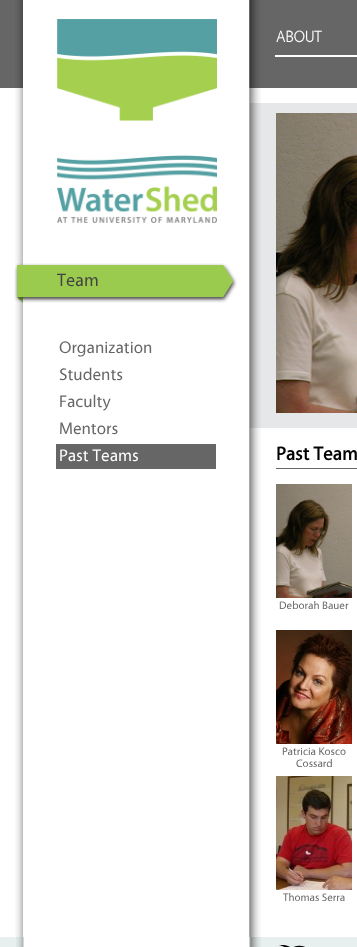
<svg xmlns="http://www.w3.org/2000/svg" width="357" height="947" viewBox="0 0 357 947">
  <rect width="100%" height="100%" fill="#ffffff"/>
  <rect x="0" y="0" width="357" height="88" fill="#666666"/>
  <rect x="250" y="103" width="107" height="325" fill="#e6e7e8"/>
  <image x="15" y="0" width="246" height="937" href="img2.png"/>
  <image x="57" y="19" width="160" height="204" href="img1.png"/>
  <rect x="275" y="55" width="82" height="2" fill="#ffffff"/>
  <text x="276" y="42" font-family="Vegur" font-size="16" font-weight="bold" fill="#ffffff">ABOUT</text>
  <image x="14" y="263" width="223" height="40" href="img3.png"/>
  <text x="57" y="286" font-family="Vegur" font-size="18" fill="#444444">Team</text>
  <text x="59" y="353" font-family="Vegur" font-size="17" fill="#666666">Organization</text>
  <text x="59" y="380" font-family="Vegur" font-size="17" fill="#666666">Students</text>
  <text x="59" y="407" font-family="Vegur" font-size="17" fill="#666666">Faculty</text>
  <text x="59" y="434" font-family="Vegur" font-size="17" fill="#666666">Mentors</text>
  <rect x="56" y="444" width="160" height="25" fill="#666666"/>
  <text x="59" y="461" font-family="Vegur" font-size="17" fill="#ffffff">Past Teams</text>
  <image x="276" y="113" width="81" height="300" href="img4.png"/>
  <rect x="276" y="468" width="81" height="1" fill="#666666"/>
  <text x="276" y="460" font-family="'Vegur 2'" font-size="19" font-weight="bold" fill="#000000">Past Team</text>
  <image x="276" y="484" width="76" height="114" href="img5.png"/>
  <text x="279" y="609" font-family="Vegur" font-size="11" fill="#666666">Deborah Bauer</text>
  <image x="276" y="630" width="76" height="114" href="img6.png"/>
  <text x="282" y="755" font-family="Vegur" font-size="11" fill="#666666">Patricia Kosco</text>
  <text x="296" y="767" font-family="Vegur" font-size="11" fill="#666666">Cossard</text>
  <image x="276" y="776" width="76" height="114" href="img7.png"/>
  <text x="283" y="901" font-family="Vegur" font-size="11" fill="#666666">Thomas Serra</text>
  <rect x="0" y="937" width="357" height="10" fill="#e7efef"/>
  <image x="16" y="937" width="245" height="10" href="img8.png"/>
  <image x="279" y="945" width="26" height="2" href="img9.png"/>
</svg>
